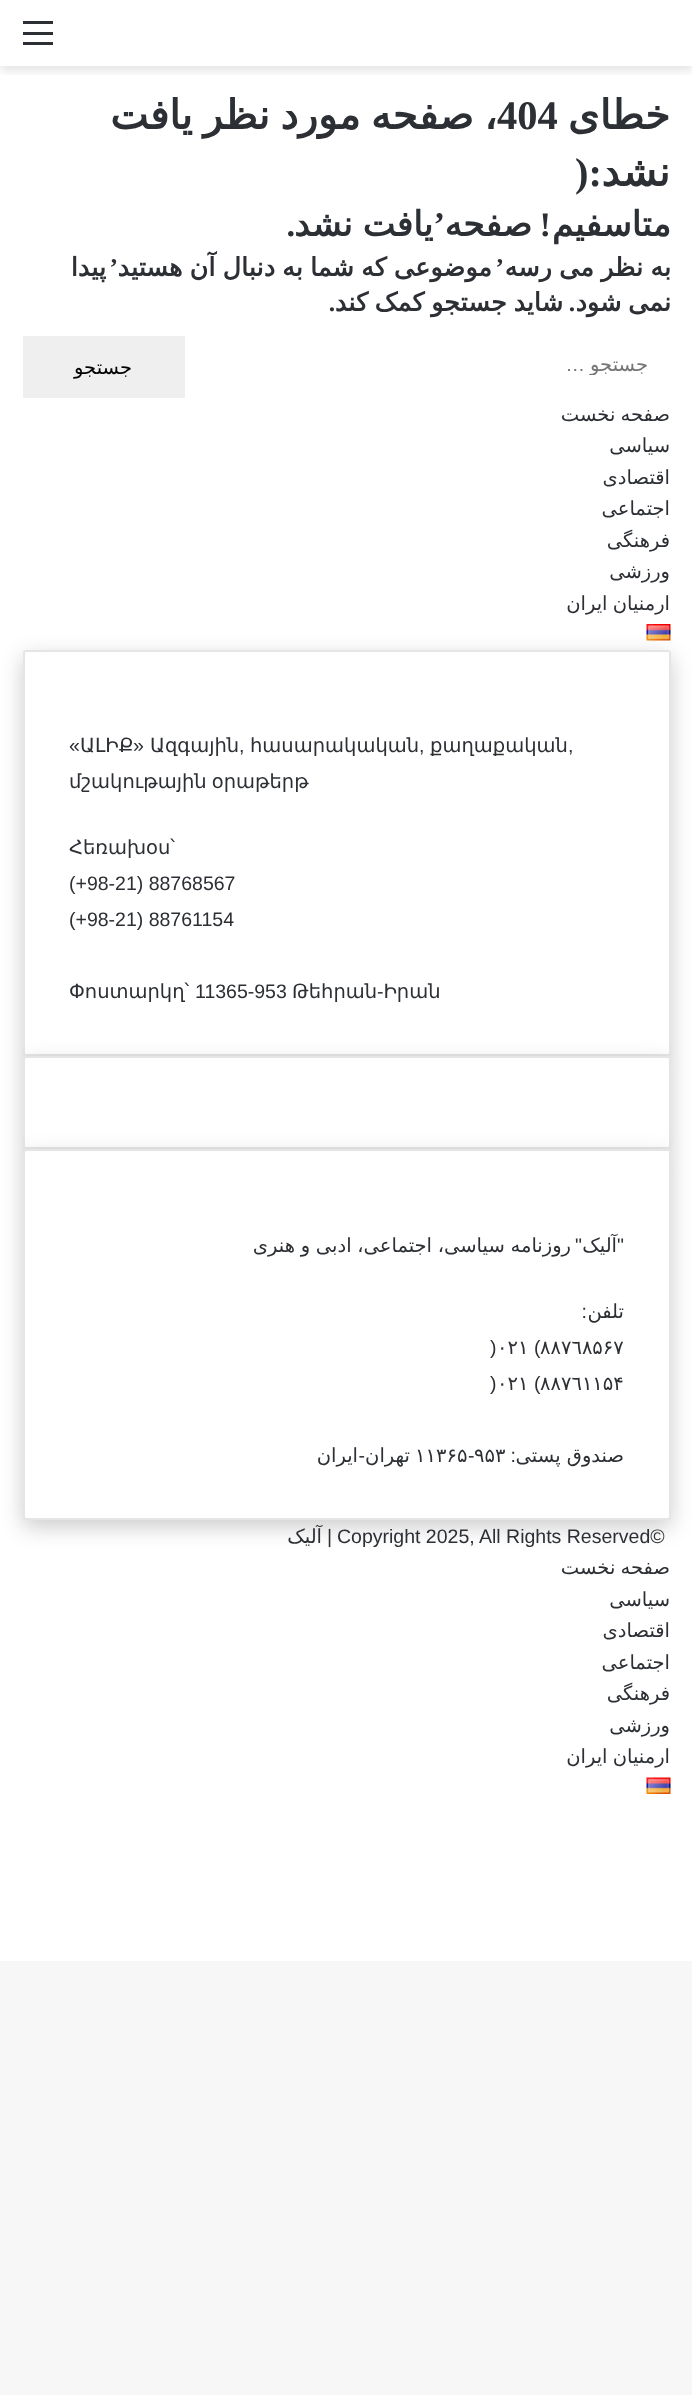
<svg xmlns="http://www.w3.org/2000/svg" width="692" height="2395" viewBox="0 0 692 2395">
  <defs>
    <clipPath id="clip1"><rect x="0" y="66" width="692" height="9"/></clipPath>
    <filter id="blur1" x="-50%" y="-200%" width="200%" height="500%"><feGaussianBlur stdDeviation="5"/></filter>
    <clipPath id="clip2"><rect x="227" y="353" width="421" height="22"/></clipPath>
    <filter id="blur2" x="-50%" y="-200%" width="200%" height="500%"><feGaussianBlur stdDeviation="11"/></filter>
  </defs>
  <rect width="100%" height="100%" fill="#f7f7f7"/>
  <rect x="0" y="0" width="692" height="1961" fill="#ffffff"/>
  <g clip-path="url(#clip1)">
    <rect x="0" y="5" width="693" height="66" fill="#000000" fill-opacity="0.1" filter="url(#blur1)"/>
  </g>
  <rect x="23" y="32" width="30" height="3" fill="#2c2f34"/>
  <rect x="23" y="21" width="30" height="3" fill="#2c2f34"/>
  <rect x="23" y="42" width="30" height="3" fill="#2c2f34"/>
  <text x="670" y="129" font-family="DejaVu Sans" font-size="40.5" font-weight="bold" direction="rtl" fill="#2c2f34">خطای</text>
  <text x="497" y="129" font-family="Liberation Serif" font-size="40.5" font-weight="bold" fill="#2c2f34">404</text>
  <text x="497" y="129" word-spacing="-2.5" font-family="DejaVu Sans" font-size="40.5" font-weight="bold" direction="rtl" fill="#2c2f34">، صفحه مورد نظر یافت</text>
  <text x="670" y="186" font-family="DejaVu Sans" font-size="40.5" font-weight="bold" direction="rtl" fill="#2c2f34">نشد</text>
  <text x="602" y="186" font-family="Liberation Serif" font-size="40.5" font-weight="bold" direction="rtl" fill="#2c2f34">:(</text>
  <text x="671" y="236" font-family="DejaVu Sans" font-size="34.5" font-weight="bold" direction="rtl" fill="#2c2f34">متاسفیم</text>
  <text x="551" y="236" font-family="Liberation Serif" font-size="34.5" font-weight="bold" direction="rtl" fill="#2c2f34">!</text>
  <text x="532" y="236" font-family="DejaVu Sans" font-size="34.5" font-weight="bold" direction="rtl" fill="#2c2f34">صفحه</text>
  <text x="445" y="236" font-family="Liberation Serif" font-size="34.5" font-weight="bold" direction="rtl" fill="#2c2f34">’</text>
  <text x="433" y="236" word-spacing="-1" font-family="DejaVu Sans" font-size="34.5" font-weight="bold" direction="rtl" fill="#2c2f34">یافت نشد</text>
  <text x="295" y="236" font-family="Liberation Serif" font-size="34.5" font-weight="bold" direction="rtl" fill="#2c2f34">.</text>
  <text x="671" y="276" word-spacing="-1" font-family="DejaVu Sans" font-size="25.5" font-weight="bold" direction="rtl" fill="#2c2f34">به نظر می رسه</text>
  <text x="504" y="276" font-family="Liberation Serif" font-size="25.5" font-weight="bold" direction="rtl" fill="#2c2f34">’</text>
  <text x="492" y="276" word-spacing="-1" font-family="DejaVu Sans" font-size="25.5" font-weight="bold" direction="rtl" fill="#2c2f34">موضوعی که شما به دنبال آن هستید</text>
  <text x="118" y="276" font-family="Liberation Serif" font-size="25.5" font-weight="bold" direction="rtl" fill="#2c2f34">’</text>
  <text x="106" y="276" font-family="DejaVu Sans" font-size="25.5" font-weight="bold" direction="rtl" fill="#2c2f34">پیدا</text>
  <text x="671" y="311" word-spacing="-1.5" font-family="DejaVu Sans" font-size="25.5" font-weight="bold" direction="rtl" fill="#2c2f34">نمی شود</text>
  <text x="575" y="311" font-family="Liberation Serif" font-size="25.5" font-weight="bold" direction="rtl" fill="#2c2f34">.</text>
  <text x="563" y="311" word-spacing="-1.5" font-family="DejaVu Sans" font-size="25.5" font-weight="bold" direction="rtl" fill="#2c2f34">شاید جستجو کمک کند</text>
  <text x="335" y="311" font-family="Liberation Serif" font-size="25.5" font-weight="bold" direction="rtl" fill="#2c2f34">.</text>
  <g clip-path="url(#clip2)">
    <text x="648" y="371" font-family="DejaVu Sans" font-size="19.5" direction="rtl" fill="#757575">جستجو</text>
  </g>
  <text x="585" y="371" font-family="Liberation Sans" font-size="19.5" direction="rtl" fill="#757575">…</text>
  <rect x="23" y="336" width="162" height="62" fill="#efefef"/>
  <text x="132" y="374" font-family="DejaVu Sans" font-size="19.5" direction="rtl" fill="#000000">جستجو</text>
  <text x="670" y="421" word-spacing="-1" font-family="DejaVu Sans" font-size="19.5" direction="rtl" fill="#2c2f34">صفحه نخست</text>
  <text x="670" y="452" font-family="DejaVu Sans" font-size="19.5" direction="rtl" fill="#2c2f34">سیاسی</text>
  <text x="670" y="484" font-family="DejaVu Sans" font-size="19.5" direction="rtl" fill="#2c2f34">اقتصادی</text>
  <text x="670" y="515" font-family="DejaVu Sans" font-size="19.5" direction="rtl" fill="#2c2f34">اجتماعی</text>
  <text x="670" y="547" font-family="DejaVu Sans" font-size="19.5" direction="rtl" fill="#2c2f34">فرهنگی</text>
  <text x="670" y="578" font-family="DejaVu Sans" font-size="19.5" direction="rtl" fill="#2c2f34">ورزشی</text>
  <text x="670" y="610" word-spacing="-1" font-family="DejaVu Sans" font-size="19.5" direction="rtl" fill="#2c2f34">ارمنیان ایران</text>
  <image x="646" y="624" width="25" height="17" href="img1.png"/>
  <rect x="23" y="657" width="648" height="407" rx="3" fill="#000000" fill-opacity="0.2" filter="url(#blur2)"/>
  <rect x="23" y="650" width="648" height="406" rx="3" fill="#ffffff"/>
  <rect x="24" y="651" width="646" height="404" rx="2" fill="none" stroke="#000000" stroke-opacity="0.1" stroke-width="2"/>
  <text x="430" y="752" font-family="DejaVu Sans" font-size="19.5" fill="#2c2f34">քաղաքական</text>
  <text x="250" y="752" font-family="DejaVu Sans" font-size="19.5" fill="#2c2f34">հասարակական</text>
  <text x="150" y="752" font-family="DejaVu Sans" font-size="19.5" fill="#2c2f34">Ազգային</text>
  <text x="133" y="752" font-family="Liberation Sans" font-size="19.5" fill="#2c2f34">»</text>
  <text x="80" y="752" font-family="DejaVu Sans" font-size="19.5" fill="#2c2f34">ԱԼԻՔ</text>
  <text x="69" y="752" font-family="Liberation Sans" font-size="19.5" fill="#2c2f34">«</text>
  <text x="568" y="752" font-family="Liberation Sans" font-size="19.5" fill="#2c2f34">,</text>
  <text x="419" y="752" font-family="Liberation Sans" font-size="19.5" fill="#2c2f34">,</text>
  <text x="239" y="752" font-family="Liberation Sans" font-size="19.5" fill="#2c2f34">,</text>
  <text x="69" y="788" word-spacing="-1" font-family="DejaVu Sans" font-size="19.5" fill="#2c2f34">մշակութային օրաթերթ</text>
  <text x="69" y="854" font-family="DejaVu Sans" font-size="19.5" fill="#2c2f34">Հեռախօս՝</text>
  <text x="69" y="890" font-family="Liberation Sans" font-size="19.5" fill="#2c2f34">(+98-21) 88768567</text>
  <text x="69" y="926" font-family="Liberation Sans" font-size="19.5" fill="#2c2f34">(+98-21) 88761154</text>
  <text x="292" y="998" font-family="DejaVu Sans" font-size="19.5" fill="#2c2f34">Թեհրան Իրան</text>
  <text x="195" y="998" font-family="Liberation Sans" font-size="19.5" fill="#2c2f34">11365-953</text>
  <text x="69" y="998" font-family="DejaVu Sans" font-size="19.5" fill="#2c2f34">Փոստարկղ՝</text>
  <text x="377" y="998" font-family="Liberation Sans" font-size="19.5" fill="#2c2f34">-</text>
  <rect x="23" y="1064" width="648" height="93" rx="3" fill="#000000" fill-opacity="0.2" filter="url(#blur2)"/>
  <rect x="23" y="1056" width="648" height="93" rx="3" fill="#ffffff"/>
  <rect x="24" y="1057" width="646" height="91" rx="2" fill="none" stroke="#000000" stroke-opacity="0.1" stroke-width="2"/>
  <rect x="23" y="1157" width="648" height="370" rx="3" fill="#000000" fill-opacity="0.2" filter="url(#blur2)"/>
  <rect x="23" y="1149" width="648" height="371" rx="3" fill="#ffffff"/>
  <rect x="24" y="1150" width="646" height="369" rx="2" fill="none" stroke="#000000" stroke-opacity="0.1" stroke-width="2"/>
  <text x="617" y="1252" font-family="DejaVu Sans" font-size="19.5" direction="rtl" fill="#2c2f34">آلیک</text>
  <text x="624" y="1252" font-family="Liberation Sans" font-size="19.5" direction="rtl" fill="#2c2f34">"</text>
  <text x="582" y="1252" font-family="Liberation Sans" font-size="19.5" direction="rtl" fill="#2c2f34">"</text>
  <text x="571" y="1252" word-spacing="-0.5" font-family="DejaVu Sans" font-size="19.5" direction="rtl" fill="#2c2f34">روزنامه سیاسی، اجتماعی، ادبی و هنری</text>
  <text x="624" y="1318" font-family="DejaVu Sans" font-size="19.5" direction="rtl" fill="#2c2f34">تلفن</text>
  <text x="587" y="1318" font-family="Liberation Sans" font-size="19.5" direction="rtl" fill="#2c2f34">:</text>
  <text x="534" y="1354" font-family="Liberation Sans" font-size="19.5" fill="#2c2f34">(</text>
  <text x="540" y="1354" font-family="DejaVu Sans" font-size="19.5" fill="#2c2f34">٨۸٧٦٨۵۶۷</text>
  <text x="497" y="1354" font-family="DejaVu Sans" font-size="19.5" fill="#2c2f34">٠٢١</text>
  <text x="490" y="1354" font-family="Liberation Sans" font-size="19.5" fill="#2c2f34">)</text>
  <text x="534" y="1390" font-family="Liberation Sans" font-size="19.5" fill="#2c2f34">(</text>
  <text x="540" y="1390" font-family="DejaVu Sans" font-size="19.5" fill="#2c2f34">٨۸٧٦۱۱۵۴</text>
  <text x="497" y="1390" font-family="DejaVu Sans" font-size="19.5" fill="#2c2f34">٠٢١</text>
  <text x="490" y="1390" font-family="Liberation Sans" font-size="19.5" fill="#2c2f34">)</text>
  <text x="624" y="1462" font-family="DejaVu Sans" font-size="19.5" direction="rtl" fill="#2c2f34">صندوق پستی</text>
  <text x="516" y="1462" font-family="Liberation Sans" font-size="19.5" direction="rtl" fill="#2c2f34">:</text>
  <text x="474" y="1462" font-family="DejaVu Sans" font-size="19.5" fill="#2c2f34">۹۵۳</text>
  <text x="468" y="1462" font-family="Liberation Sans" font-size="19.5" fill="#2c2f34">-</text>
  <text x="415" y="1462" font-family="DejaVu Sans" font-size="19.5" fill="#2c2f34">۱۱۳۶۵</text>
  <text x="410" y="1462" font-family="DejaVu Sans" font-size="19.5" direction="rtl" fill="#2c2f34">تهران</text>
  <text x="365" y="1462" font-family="Liberation Sans" font-size="19.5" direction="rtl" fill="#2c2f34">-</text>
  <text x="358" y="1462" font-family="DejaVu Sans" font-size="19.5" direction="rtl" fill="#2c2f34">ایران</text>
  <text x="337" y="1543" font-family="Liberation Sans" font-size="19.5" fill="#2c2f34">Copyright 2025, All Rights Reserved©</text>
  <text x="332" y="1543" font-family="Liberation Sans" font-size="19.5" direction="rtl" fill="#2c2f34">|</text>
  <text x="322" y="1543" font-family="DejaVu Sans" font-size="19.5" direction="rtl" fill="#2c2f34">آلیک</text>
  <text x="670" y="1574" word-spacing="-1" font-family="DejaVu Sans" font-size="19.5" direction="rtl" fill="#2c2f34">صفحه نخست</text>
  <text x="670" y="1606" font-family="DejaVu Sans" font-size="19.5" direction="rtl" fill="#2c2f34">سیاسی</text>
  <text x="670" y="1637" font-family="DejaVu Sans" font-size="19.5" direction="rtl" fill="#2c2f34">اقتصادی</text>
  <text x="670" y="1669" font-family="DejaVu Sans" font-size="19.5" direction="rtl" fill="#2c2f34">اجتماعی</text>
  <text x="670" y="1700" font-family="DejaVu Sans" font-size="19.5" direction="rtl" fill="#2c2f34">فرهنگی</text>
  <text x="670" y="1732" font-family="DejaVu Sans" font-size="19.5" direction="rtl" fill="#2c2f34">ورزشی</text>
  <text x="670" y="1763" word-spacing="-1" font-family="DejaVu Sans" font-size="19.5" direction="rtl" fill="#2c2f34">ارمنیان ایران</text>
  <image x="646" y="1777" width="25" height="17" href="img2.png"/>
</svg>
